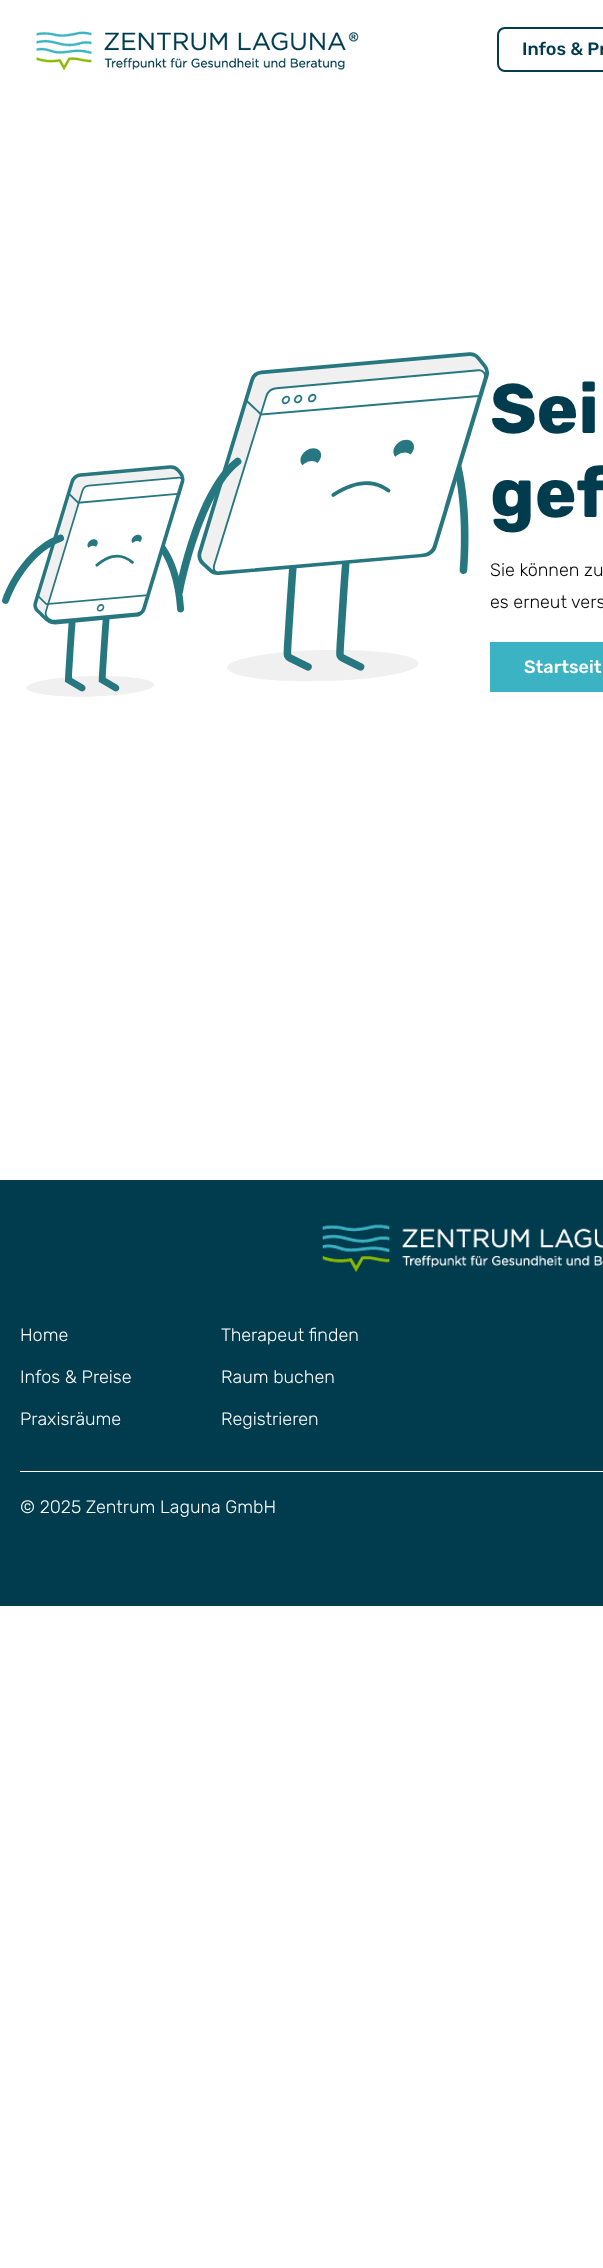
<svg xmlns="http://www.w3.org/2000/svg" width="603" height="2268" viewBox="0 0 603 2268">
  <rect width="100%" height="100%" fill="#ffffff"/>
  <image x="36" y="31" width="323" height="40" href="img1.png"/>
  <rect x="498" y="28" width="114" height="43" rx="7" fill="none" stroke="#003b4e" stroke-width="2"/>
  <text x="522" y="55" font-family="Rubik" font-size="18" font-weight="500" fill="#003b4e">Infos &amp; Pr</text>
  <image x="2" y="352" width="487" height="345" href="img2.png"/>
  <text x="490" y="433" font-family="Rubik" font-size="70" font-weight="bold" fill="#003b4e">Sei</text>
  <text x="490" y="517" font-family="Rubik" font-size="70" font-weight="bold" fill="#003b4e">gef</text>
  <text x="490" y="576" font-family="Rubik" font-size="18" font-weight="300" fill="#000000">Sie können zu</text>
  <text x="490" y="608" font-family="Rubik" font-size="18" font-weight="300" fill="#000000">es erneut vers</text>
  <rect x="490" y="642" width="113" height="50" fill="#3bb3c2"/>
  <text x="524" y="673" font-family="Rubik" font-size="18" font-weight="500" fill="#ffffff">Startseit</text>
  <rect x="0" y="1180" width="603" height="426" fill="#003b4e"/>
  <image x="322" y="1224" width="281" height="48" href="img3.png"/>
  <text x="20" y="1341" font-family="Rubik" font-size="18" font-weight="300" fill="#ffffff">Home</text>
  <text x="20" y="1383" font-family="Rubik" font-size="18" font-weight="300" fill="#ffffff">Infos &amp; Preise</text>
  <text x="20" y="1425" font-family="Rubik" font-size="18" font-weight="300" fill="#ffffff">Praxisräume</text>
  <text x="221" y="1341" font-family="Rubik" font-size="18" font-weight="300" fill="#ffffff">Therapeut finden</text>
  <text x="221" y="1383" font-family="Rubik" font-size="18" font-weight="300" fill="#ffffff">Raum buchen</text>
  <text x="221" y="1425" font-family="Rubik" font-size="18" font-weight="300" fill="#ffffff">Registrieren</text>
  <rect x="20" y="1471" width="583" height="1" fill="#ffffff"/>
  <text x="20" y="1513" font-family="Rubik" font-size="18" font-weight="300" fill="#ffffff">© 2025 Zentrum Laguna GmbH</text>
</svg>
